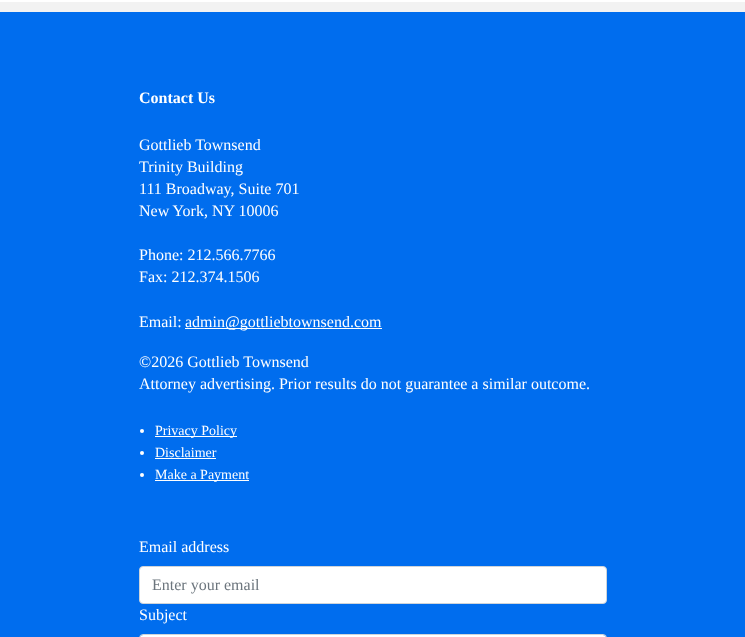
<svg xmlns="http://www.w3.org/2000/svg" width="745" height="637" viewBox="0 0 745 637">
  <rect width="100%" height="100%" fill="#f2f2f2"/>
  <rect x="0" y="0" width="745" height="2" fill="#ffffff"/>
  <rect x="0" y="12" width="745" height="625" fill="#006dee"/>
  <text x="139" y="103" font-family="Liberation Serif" font-size="16" font-weight="bold" fill="#ffffff">Contact Us</text>
  <text x="139" y="150" font-family="Liberation Serif" font-size="16" fill="#ffffff">Gottlieb Townsend</text>
  <text x="139" y="172" font-family="Liberation Serif" font-size="16" fill="#ffffff">Trinity Building</text>
  <text x="139" y="194" font-family="Liberation Serif" font-size="16" fill="#ffffff">111 Broadway, Suite 701</text>
  <text x="139" y="216" font-family="Liberation Serif" font-size="16" fill="#ffffff">New York, NY 10006</text>
  <text x="139" y="260" font-family="Liberation Serif" font-size="16" fill="#ffffff">Phone: 212.566.7766</text>
  <text x="139" y="282" font-family="Liberation Serif" font-size="16" fill="#ffffff">Fax: 212.374.1506</text>
  <text x="139" y="327" font-family="Liberation Serif" font-size="16" fill="#ffffff">Email:</text>
  <rect x="185" y="328" width="197" height="1" fill="#ffffff"/>
  <text x="185" y="327" font-family="Liberation Serif" font-size="16" fill="#ffffff">admin@gottliebtownsend.com</text>
  <text x="139" y="367" font-family="Liberation Serif" font-size="16" fill="#ffffff">©2026 Gottlieb Townsend</text>
  <text x="139" y="389" font-family="Liberation Serif" font-size="16" fill="#ffffff">Attorney advertising. Prior results do not guarantee a similar outcome.</text>
  <circle cx="142" cy="431" r="2" fill="#ffffff"/>
  <rect x="155" y="436" width="82" height="1" fill="#ffffff"/>
  <text x="155" y="435" font-family="Liberation Serif" font-size="14" fill="#ffffff">Privacy Policy</text>
  <circle cx="142" cy="453" r="2" fill="#ffffff"/>
  <text x="155" y="457" font-family="Liberation Serif" font-size="14" fill="#ffffff">Disclaimer</text>
  <rect x="155" y="458" width="61" height="1" fill="#ffffff"/>
  <circle cx="142" cy="475" r="2" fill="#ffffff"/>
  <rect x="155" y="480" width="94" height="1" fill="#ffffff"/>
  <text x="155" y="479" font-family="Liberation Serif" font-size="14" fill="#ffffff">Make a Payment</text>
  <text x="139" y="552" font-family="Liberation Serif" font-size="16" fill="#ffffff">Email address</text>
  <rect x="139.5" y="566.5" width="467" height="37" rx="3.5" fill="#ffffff" stroke="#ced4da"/>
  <text x="152" y="590" font-family="Liberation Serif" font-size="16" fill="#6c757d">Enter your email</text>
  <text x="139" y="620" font-family="Liberation Serif" font-size="16" fill="#ffffff">Subject</text>
  <rect x="140" y="635" width="466" height="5" rx="3" fill="#ffffff"/>
  <rect x="139.5" y="634.5" width="467" height="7" rx="3.5" fill="none" stroke="#ced4da"/>
</svg>
